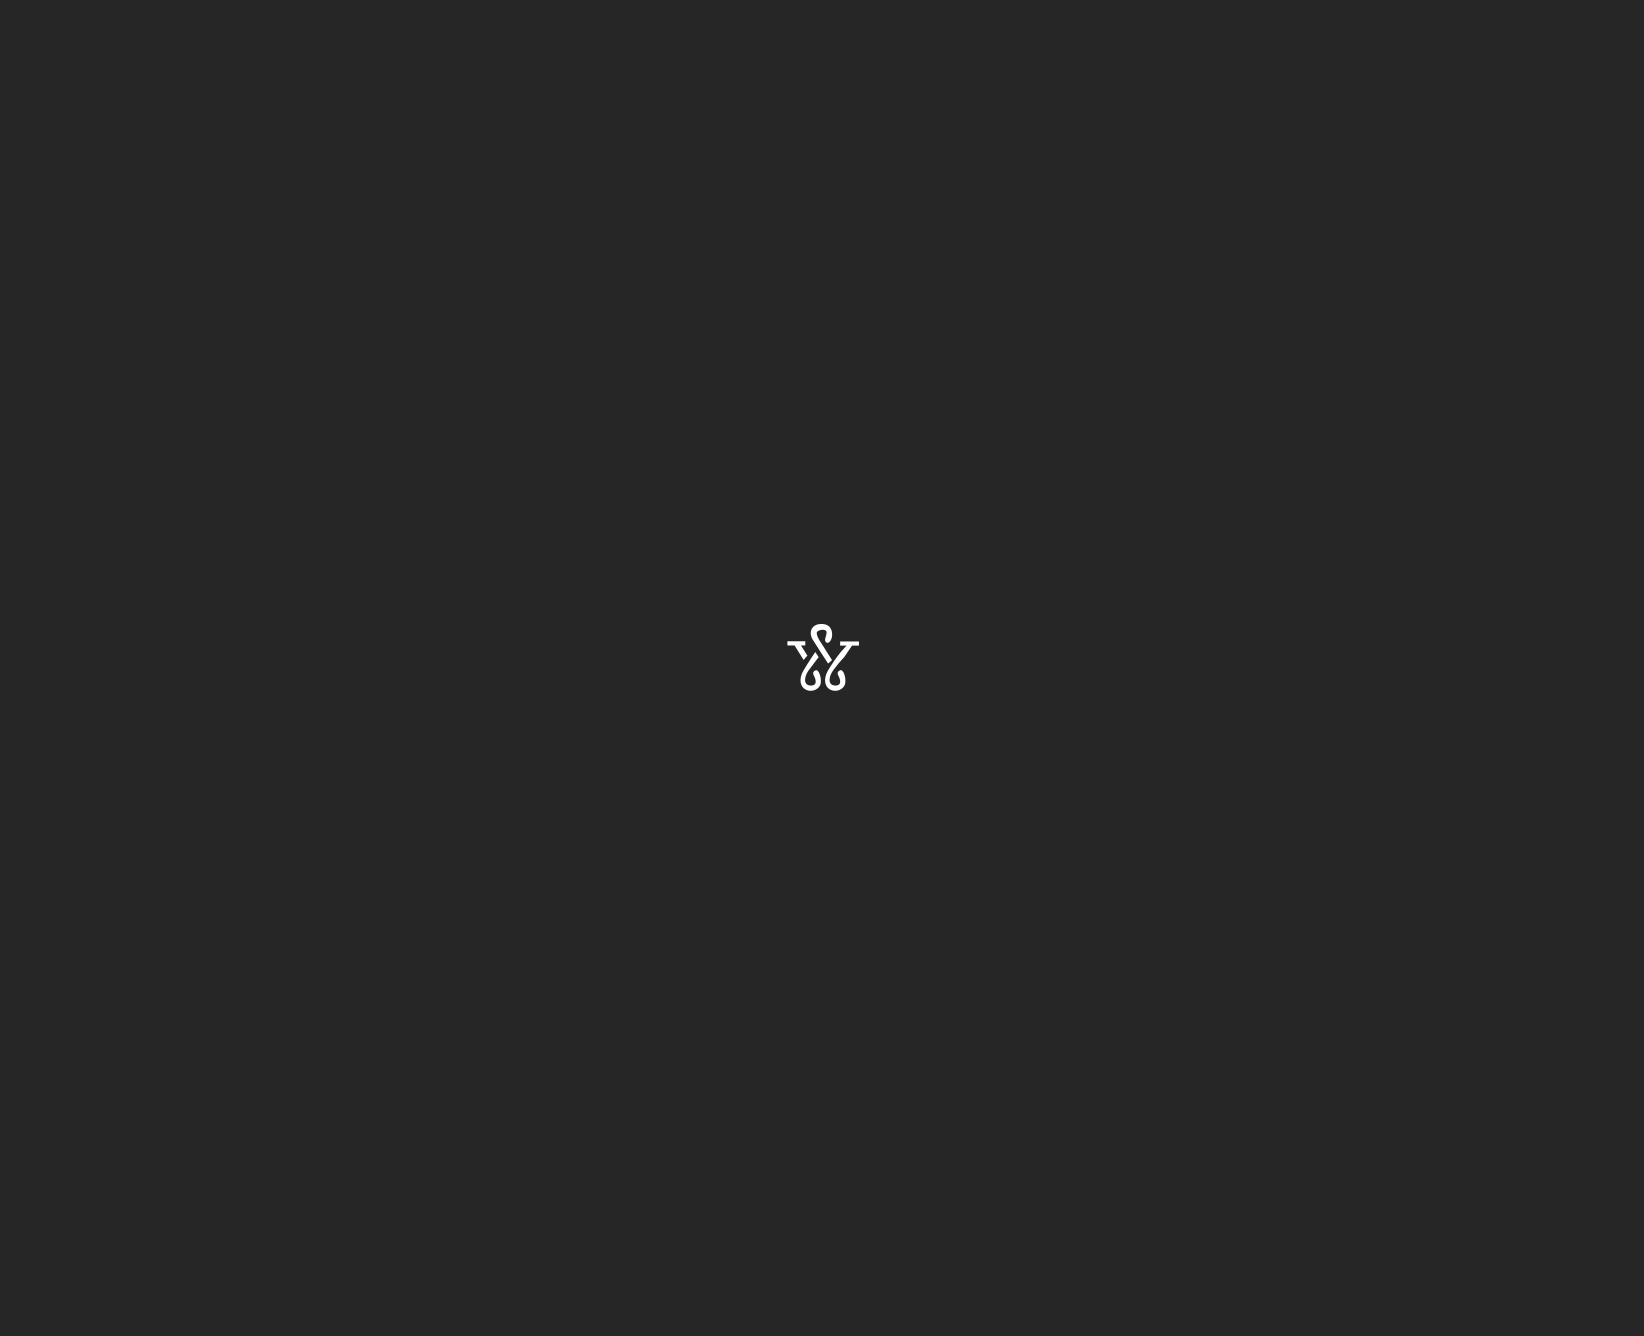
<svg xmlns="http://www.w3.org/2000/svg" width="1644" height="1336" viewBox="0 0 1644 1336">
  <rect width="100%" height="100%" fill="#262626"/>
  <image x="787" y="624" width="72" height="67" href="img1.png"/>
</svg>
